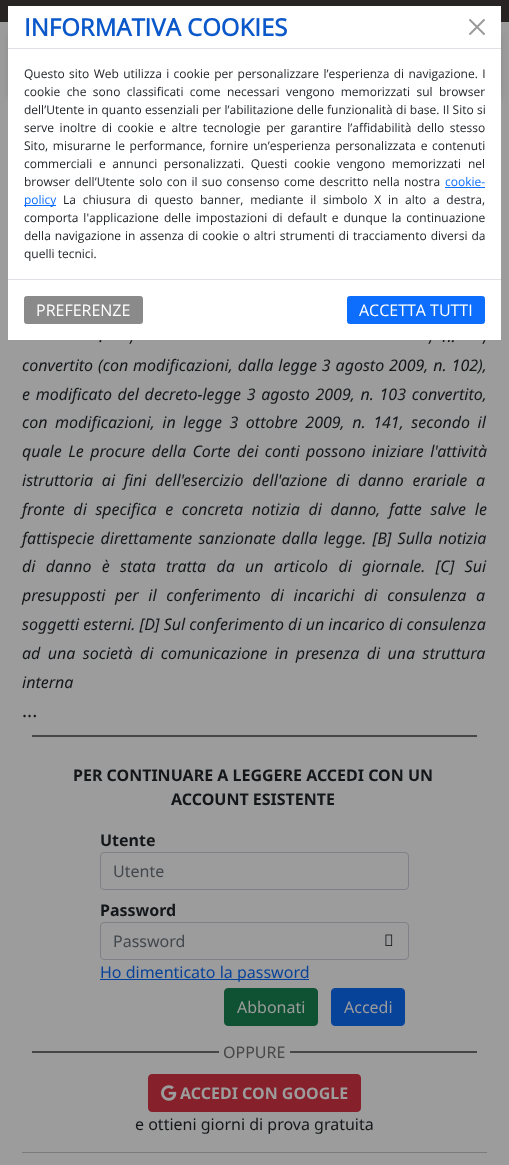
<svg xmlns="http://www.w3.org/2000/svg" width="509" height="1165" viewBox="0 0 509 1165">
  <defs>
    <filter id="blur1" x="-50%" y="-200%" width="200%" height="500%"><feGaussianBlur stdDeviation="4"/></filter>
  </defs>
  <rect width="100%" height="100%" fill="#9c9c9c"/>
  <rect x="0" y="0" width="509" height="22" fill="#282424"/>
  <text x="429" y="342" word-spacing="5" font-family="Noto Sans" font-size="16" font-style="italic" fill="#141719">, n.</text>
  <rect x="8" y="34" width="493" height="64" fill="#000000" fill-opacity="0.1" filter="url(#blur1)"/>
  <rect x="8" y="6" width="493" height="334" fill="#ffffff"/>
  <rect x="8" y="48" width="493" height="1" fill="#dee2e6"/>
  <text x="24" y="36" font-family="Open Sans" font-size="24" font-weight="bold" fill="#0a58ca">INFORMATIVA COOKIES</text>
  <image x="469" y="19" width="16" height="16" href="img1.png"/>
  <text x="24" y="78" word-spacing="1.25" font-family="Open Sans" font-size="12" fill="#212529">Questo sito Web utilizza i cookie per personalizzare l’esperienza di navigazione. I</text>
  <text x="24" y="96" word-spacing="3.25" font-family="Open Sans" font-size="12" fill="#212529">cookie che sono classificati come necessari vengono memorizzati sul browser</text>
  <text x="24" y="114" word-spacing="0.25" font-family="Open Sans" font-size="12" fill="#212529">dell’Utente in quanto essenziali per l’abilitazione delle funzionalità di base. Il Sito si</text>
  <text x="24" y="132" word-spacing="2.4" font-family="Open Sans" font-size="12" fill="#212529">serve inoltre di cookie e altre tecnologie per garantire l’affidabilità dello stesso</text>
  <text x="24" y="150" word-spacing="1.5" font-family="Open Sans" font-size="12" fill="#212529">Sito, misurarne le performance, fornire un’esperienza personalizzata e contenuti</text>
  <text x="24" y="168" word-spacing="3.5" font-family="Open Sans" font-size="12" fill="#212529">commerciali e annunci personalizzati. Questi cookie vengono memorizzati</text>
  <text x="468" y="168" font-family="Open Sans" font-size="12" fill="#212529">nel</text>
  <text x="24" y="186" word-spacing="1.25" font-family="Open Sans" font-size="12" fill="#212529">browser dell’Utente solo con il suo consenso come descritto nella nostra</text>
  <text x="445" y="186" font-family="Open Sans" font-size="12" fill="#0d6efd">cookie-</text>
  <rect x="445" y="187" width="40" height="1" fill="#0d6efd"/>
  <rect x="24" y="205" width="32" height="1" fill="#0d6efd"/>
  <text x="24" y="204" font-family="Open Sans" font-size="12" fill="#0d6efd">policy</text>
  <text x="63" y="204" word-spacing="3.6" font-family="Open Sans" font-size="12" fill="#212529">La chiusura di questo banner, mediante il simbolo X in alto a destra,</text>
  <text x="24" y="222" word-spacing="1.75" font-family="Open Sans" font-size="12" fill="#212529">comporta l'applicazione</text>
  <text x="164" y="222" word-spacing="1.75" font-family="Open Sans" font-size="12" fill="#212529">delle impostazioni di default e dunque la continuazione</text>
  <text x="24" y="240" word-spacing="0.9" font-family="Open Sans" font-size="12" fill="#212529">della navigazione in assenza di cookie o altri strumenti di tracciamento diversi da</text>
  <text x="24" y="258" font-family="Open Sans" font-size="12" fill="#212529">quelli tecnici.</text>
  <rect x="8" y="279" width="493" height="1" fill="#dee2e6"/>
  <rect x="24.5" y="296.5" width="118" height="27" rx="2" fill="#8a8a8a" stroke="#8a8a8a"/>
  <text x="36" y="316" font-family="Open Sans" font-size="16" fill="#ffffff">PREFERENZE</text>
  <rect x="347.5" y="296.5" width="137" height="27" rx="2" fill="#0d6efd" stroke="#0d6efd"/>
  <text x="359" y="316" font-family="Open Sans" font-size="16" fill="#ffffff">ACCETTA TUTTI</text>
  <text x="100" y="846" font-family="Noto Sans" font-size="16" font-weight="bold" fill="#141719">Utente</text>
  <rect x="100.5" y="852.5" width="308" height="37" rx="3.5" fill="none" stroke="#7e8185"/>
  <text x="113" y="877" font-family="Noto Sans" font-size="16" fill="#42474c">Utente</text>
  <text x="100" y="916" font-family="Noto Sans" font-size="16" font-weight="bold" fill="#141719">Password</text>
  <rect x="100.5" y="922.5" width="308" height="37" rx="3.5" fill="none" stroke="#7e8185"/>
  <text x="113" y="947" font-family="Noto Sans" font-size="16" fill="#42474c">Password</text>
  <image x="385" y="934" width="8" height="12" href="img2.png"/>
  <rect x="100" y="979" width="209" height="1" fill="#08439a"/>
  <text x="100" y="978" font-family="Noto Sans" font-size="16" fill="#08439a">Ho dimenticato la password</text>
  <rect x="224.5" y="988.5" width="93" height="37" rx="3.5" fill="#0f5233" stroke="#0f5233"/>
  <text x="237" y="1013" font-family="Noto Sans" font-size="16" fill="#9c9c9c">Abbonati</text>
  <rect x="331.5" y="988.5" width="73" height="37" rx="3.5" fill="#08439a" stroke="#08439a"/>
  <text x="344" y="1013" font-family="Noto Sans" font-size="16" fill="#9c9c9c">Accedi</text>
  <rect x="32" y="1051" width="187" height="2" fill="#464646"/>
  <text x="223" y="1058" font-family="Noto Sans" font-size="16" fill="#464646">OPPURE</text>
  <rect x="290" y="1051" width="187" height="2" fill="#464646"/>
  <rect x="148.5" y="1074.5" width="212" height="37" rx="3.5" fill="#86202a" stroke="#86202a"/>
  <image x="161" y="1085" width="16" height="16" href="img3.png"/>
  <text x="180" y="1099" font-family="Noto Sans" font-size="16" font-weight="bold" fill="#9c9c9c">ACCEDI CON GOOGLE</text>
  <text x="135" y="1130" font-family="Noto Sans" font-size="16" fill="#141719">e ottieni giorni di prova gratuita</text>
  <rect x="22" y="1152" width="465" height="1" fill="#7a7b7b"/>
  <text x="99" y="342" word-spacing="5" font-family="Noto Sans" font-size="16" font-style="italic" fill="#141719">.</text>
  <text x="130" y="342" word-spacing="5" font-family="Noto Sans" font-size="16" font-style="italic" fill="#141719">,</text>
  <text x="483" y="342" word-spacing="5" font-family="Noto Sans" font-size="16" font-style="italic" fill="#141719">,</text>
  <text x="22" y="371" word-spacing="0.75" font-family="Noto Sans" font-size="16" font-style="italic" fill="#141719">convertito (con modificazioni, dalla legge 3 agosto 2009, n. 102),</text>
  <text x="22" y="400" word-spacing="1.5" font-family="Noto Sans" font-size="16" font-style="italic" fill="#141719">e modificato del decreto-legge 3 agosto 2009, n. 103 convertito,</text>
  <text x="22" y="428" word-spacing="3.4" font-family="Noto Sans" font-size="16" font-style="italic" fill="#141719">con modificazioni, in legge 3 ottobre 2009, n. 141, secondo il</text>
  <text x="22" y="457" word-spacing="2.25" font-family="Noto Sans" font-size="16" font-style="italic" fill="#141719">quale Le procure della Corte dei conti possono iniziare l'attività</text>
  <text x="22" y="486" word-spacing="4.5" font-family="Noto Sans" font-size="16" font-style="italic" fill="#141719">istruttoria ai fini dell'esercizio dell'azione di danno erariale a</text>
  <text x="22" y="515" word-spacing="4.5" font-family="Noto Sans" font-size="16" font-style="italic" fill="#141719">fronte di specifica e concreta notizia di danno, fatte salve le</text>
  <text x="22" y="544" word-spacing="2" font-family="Noto Sans" font-size="16" font-style="italic" fill="#141719">fattispecie direttamente sanzionate dalla legge. [B] Sulla notizia</text>
  <text x="22" y="572" word-spacing="6.1" font-family="Noto Sans" font-size="16" font-style="italic" fill="#141719">di danno è stata tratta da un articolo di giornale. [C] Sui</text>
  <text x="22" y="601" word-spacing="5.5" font-family="Noto Sans" font-size="16" font-style="italic" fill="#141719">presupposti per il conferimento di incarichi di consulenza a</text>
  <text x="22" y="630" font-family="Noto Sans" font-size="16" font-style="italic" fill="#141719">soggetti esterni. [D] Sul conferimento di un incarico di consulenza</text>
  <text x="22" y="659" word-spacing="3.25" font-family="Noto Sans" font-size="16" font-style="italic" fill="#141719">ad una società di comunicazione in presenza di una struttura</text>
  <text x="22" y="688" font-family="Noto Sans" font-size="16" font-style="italic" fill="#141719">interna</text>
  <text x="22" y="717" font-family="Noto Sans" font-size="19" fill="#141719">...</text>
  <rect x="32" y="735" width="445" height="2" fill="#464646"/>
  <text x="73" y="781" font-family="Noto Sans" font-size="16" font-weight="bold" fill="#141719">PER CONTINUARE A LEGGERE ACCEDI CON UN</text>
  <text x="171" y="805" font-family="Noto Sans" font-size="16" font-weight="bold" fill="#141719">ACCOUNT ESISTENTE</text>
</svg>
